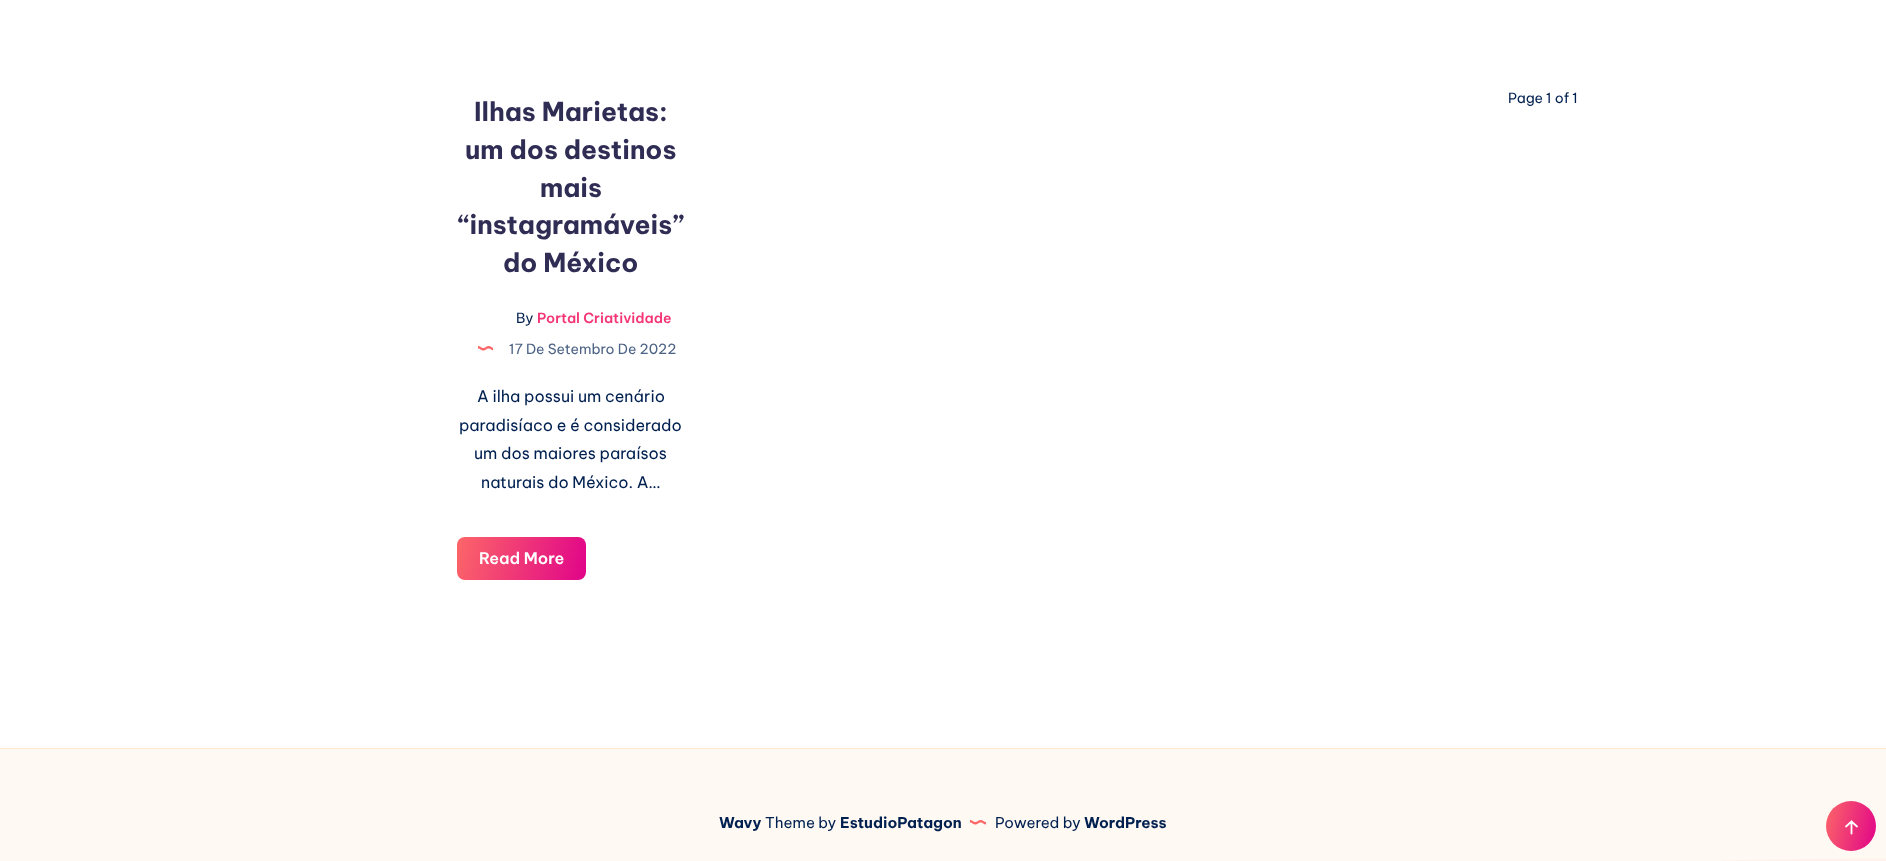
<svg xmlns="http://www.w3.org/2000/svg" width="1886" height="861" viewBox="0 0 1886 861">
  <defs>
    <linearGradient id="g1" gradientUnits="userSpaceOnUse" x1="456" y1="543" x2="587" y2="574"><stop offset="0" stop-color="#fc6668"/><stop offset="1" stop-color="#e10489"/></linearGradient>
    <linearGradient id="g2" gradientUnits="userSpaceOnUse" x1="1822" y1="819" x2="1880" y2="833"><stop offset="0" stop-color="#fc6668"/><stop offset="1" stop-color="#e10489"/></linearGradient>
  </defs>
  <rect width="100%" height="100%" fill="#ffffff"/>
  <text x="474" y="121" font-family="Be Vietnam Pro" font-size="26" font-weight="bold" fill="#302d55">Ilhas Marietas:</text>
  <text x="465" y="159" font-family="Be Vietnam Pro" font-size="26" font-weight="bold" fill="#302d55">um dos destinos</text>
  <text x="540" y="197" font-family="Be Vietnam Pro" font-size="26" font-weight="bold" fill="#302d55">mais</text>
  <text x="458" y="234" font-family="Be Vietnam Pro" font-size="26" font-weight="bold" fill="#302d55">“instagramáveis”</text>
  <text x="503" y="272" font-family="Be Vietnam Pro" font-size="26" font-weight="bold" fill="#302d55">do México</text>
  <text x="516" y="323" font-family="Be Vietnam Pro" font-size="14" fill="#002050">By</text>
  <text x="537" y="323" font-family="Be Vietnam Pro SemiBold" font-size="14" font-weight="600" fill="#f43676">Portal Criatividade</text>
  <image x="478" y="346" width="15" height="5" href="img1.png"/>
  <text x="509" y="354" font-family="Be Vietnam Pro" font-size="14" fill="#4d6385">17 De Setembro De 2022</text>
  <text x="477" y="402" font-family="Be Vietnam Pro" font-size="16" fill="#002050">A ilha possui um cenário</text>
  <text x="459" y="431" font-family="Be Vietnam Pro" font-size="16" fill="#002050">paradisíaco e é considerado</text>
  <text x="474" y="459" font-family="Be Vietnam Pro" font-size="16" fill="#002050">um dos maiores paraísos</text>
  <text x="481" y="488" font-family="Be Vietnam Pro" font-size="16" fill="#002050">naturais do México. A…</text>
  <rect x="457" y="537" width="129" height="43" rx="8" fill="url(#g1)"/>
  <text x="479" y="564" font-family="Be Vietnam Pro SemiBold" font-size="16" font-weight="600" fill="#ffffff">Read More</text>
  <text x="1508" y="103" font-family="Be Vietnam Pro" font-size="14" fill="#002050">Page 1 of 1</text>
  <rect x="0" y="749" width="1886" height="112" fill="#fff9f3"/>
  <rect x="0" y="748" width="1886" height="1" fill="#ffe7d2"/>
  <text x="719" y="828" font-family="Be Vietnam Pro" font-size="15" font-weight="bold" fill="#002050">Wavy</text>
  <text x="765" y="828" font-family="Be Vietnam Pro" font-size="15" fill="#002050">Theme by</text>
  <text x="840" y="828" font-family="Be Vietnam Pro" font-size="15" font-weight="bold" fill="#002050">EstudioPatagon</text>
  <image x="970" y="820" width="16" height="5" href="img2.png"/>
  <text x="995" y="828" font-family="Be Vietnam Pro" font-size="15" fill="#002050">Powered by</text>
  <text x="1084" y="828" font-family="Be Vietnam Pro" font-size="15" font-weight="bold" fill="#002050">WordPress</text>
  <circle cx="1851" cy="826" r="25" fill="url(#g2)"/>
  <path d="M1851.5 821.5L1857 826.5M1851.5 821.5L1846 826.5M1851.5 821.5V833.5" fill="none" stroke="#ffffff" stroke-width="1.8" stroke-linecap="round" stroke-linejoin="round"/>
  <image x="1722" y="858" width="164" height="3" href="img3.png"/>
</svg>
